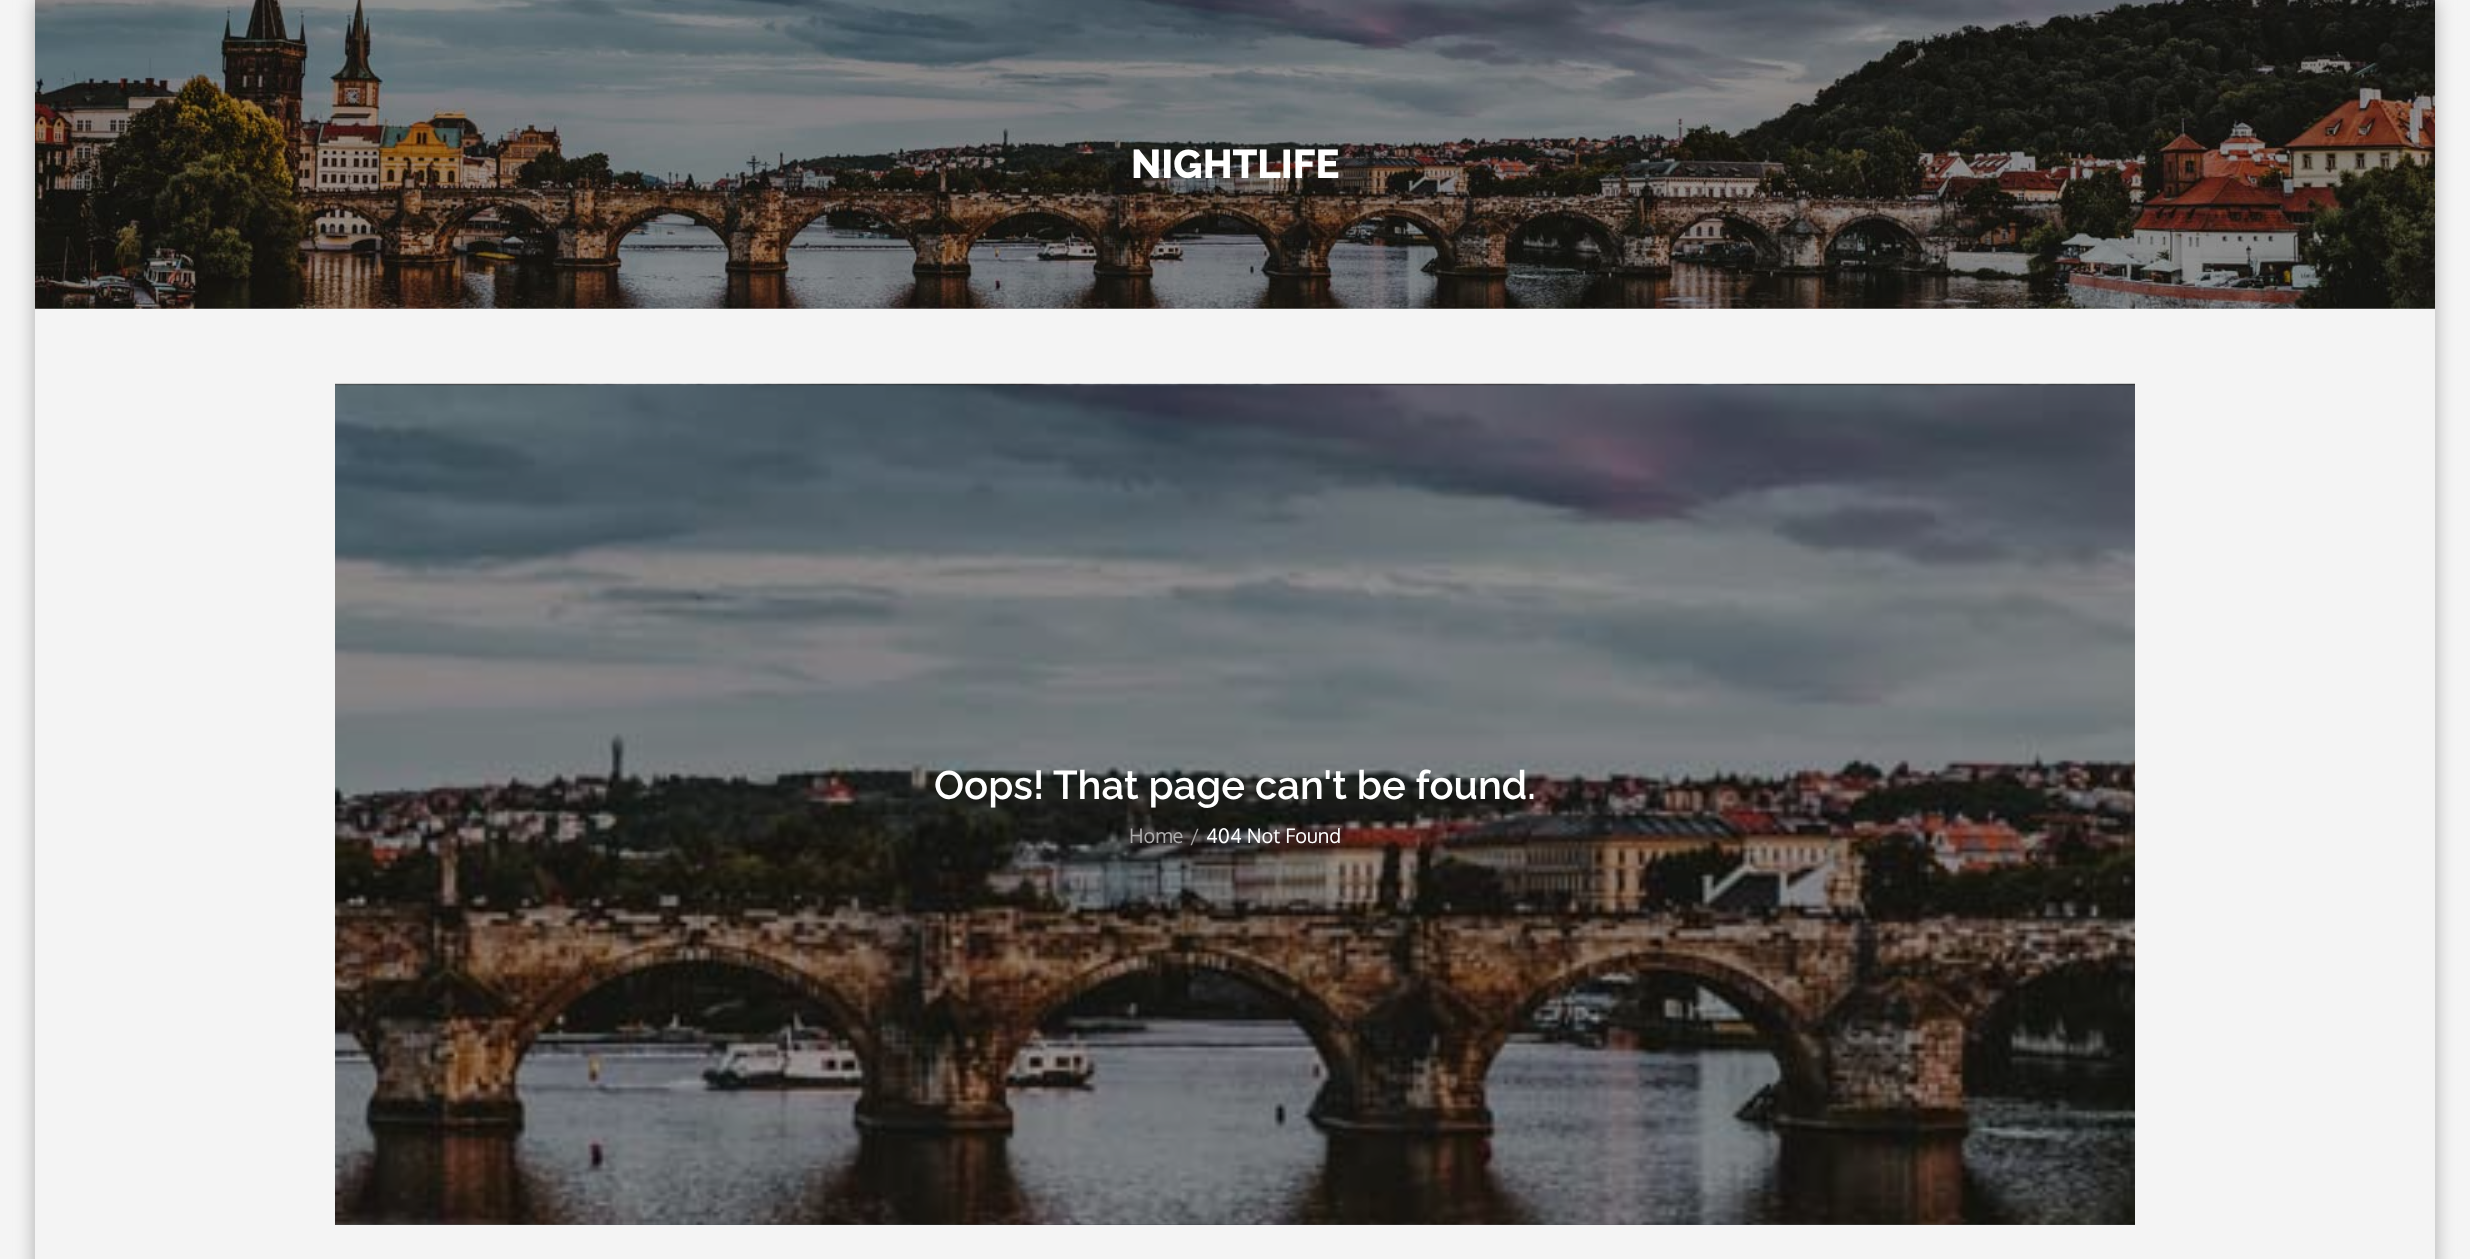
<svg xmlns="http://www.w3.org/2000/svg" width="2470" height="1259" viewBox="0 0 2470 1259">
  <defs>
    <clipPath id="clip1"><path d="M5 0H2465V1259H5ZM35 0H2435V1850H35Z" clip-rule="evenodd"/></clipPath>
    <filter id="blur1" x="-50%" y="-200%" width="200%" height="500%"><feGaussianBlur stdDeviation="9.5"/></filter>
  </defs>
  <rect width="100%" height="100%" fill="#f4f4f4"/>
  <g clip-path="url(#clip1)">
    <rect x="35" y="0" width="2400" height="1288" fill="#aaaaaa" filter="url(#blur1)"/>
  </g>
  <image x="35" y="0" width="2400" height="309" href="img1.png"/>
  <text x="1131" y="178" font-family="Raleway" font-size="40" font-weight="800" fill="#ffffff">NIGHTLIFE</text>
  <image x="335" y="383" width="1800" height="842" href="img2.png"/>
  <text x="934" y="799" font-family="Raleway" font-size="40" font-weight="600" fill="#ffffff">Oops! That page can't be found.</text>
  <text x="1129" y="843" font-family="Oxygen" font-size="20" fill="#aeadad">Home</text>
  <text x="1190" y="843" font-family="Oxygen" font-size="20" fill="#a8a7a6">/</text>
  <text x="1206" y="843" font-family="Oxygen" font-size="20" fill="#ffffff">404 Not Found</text>
</svg>
